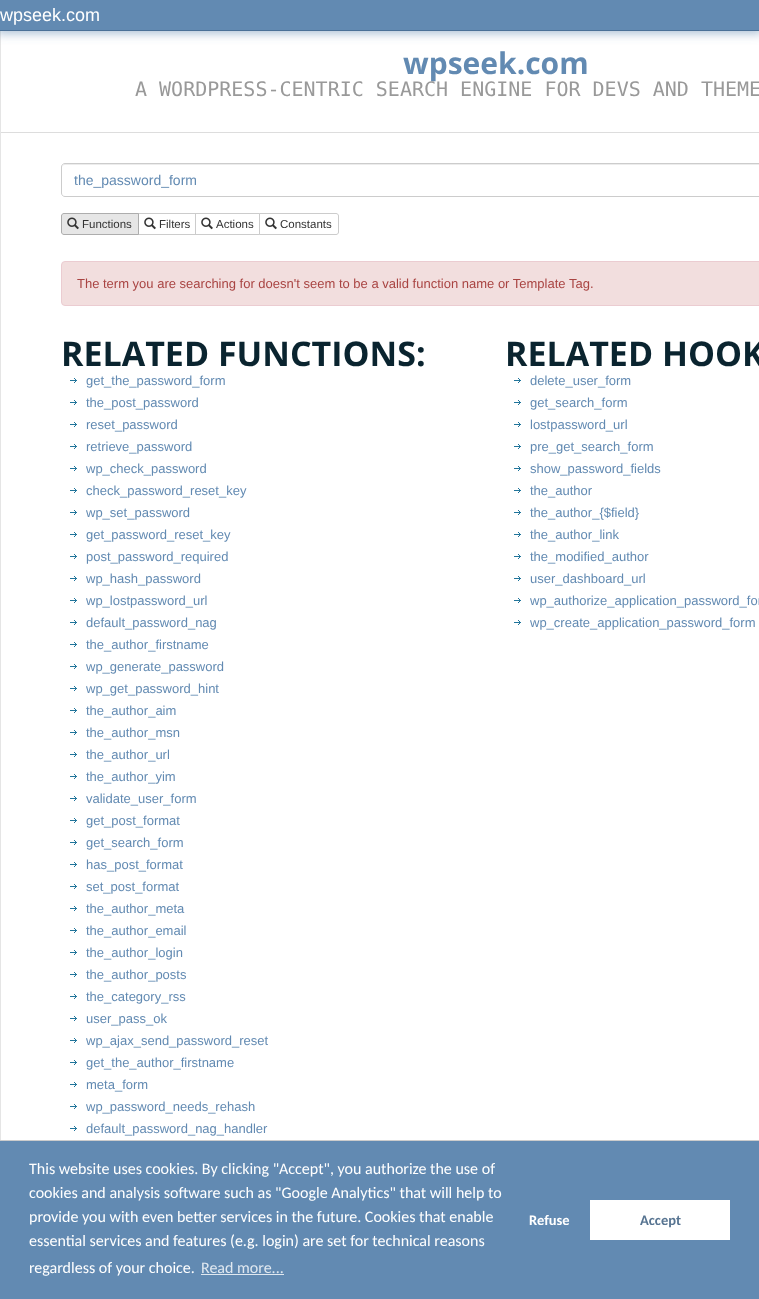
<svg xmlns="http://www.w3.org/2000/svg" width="759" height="1299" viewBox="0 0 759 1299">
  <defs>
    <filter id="blur1" x="-50%" y="-200%" width="200%" height="500%"><feGaussianBlur stdDeviation="5"/></filter>
  </defs>
  <rect width="100%" height="100%" fill="#ffffff"/>
  <rect x="0" y="31" width="1" height="1109" fill="#e5e5e5"/>
  <rect x="-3" y="-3" width="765" height="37" fill="#628ab2" fill-opacity="0.5" filter="url(#blur1)"/>
  <rect x="0" y="0" width="759" height="30" fill="#628ab2"/>
  <rect x="0" y="30" width="759" height="1" fill="#4a7097"/>
  <text x="0" y="21" font-family="Liberation Sans" font-size="18" fill="#ffffff">wpseek.com</text>
  <rect x="1" y="132" width="758" height="1" fill="#dddddd"/>
  <text x="403" y="74" font-family="Open Sans" font-size="30" font-weight="bold" fill="#628ab2">wpseek.com</text>
  <text x="135" y="96" font-family="DejaVu Sans Mono" font-size="20" fill="#999999">A WORDPRESS-CENTRIC SEARCH ENGINE FOR DEVS AND THEME</text>
  <path d="M65 165H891V164H65C63 164 62 166 62 168C62 166 63 165 65 165Z" fill="#ececec"/>
  <path d="M65 163.5H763.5V196.5H65C63 196.5 61.5 195 61.5 193V167C61.5 165 63 163.5 65 163.5Z" fill="none" stroke="#cccccc"/>
  <text x="74" y="185" font-family="Liberation Sans" font-size="14" fill="#628ab2">the_password_form</text>
  <rect x="138.5" y="213.5" width="57" height="21" fill="none" stroke="#cccccc"/>
  <path d="M64 213.5H138.5V234.5H64C62.5 234.5 61.5 233.5 61.5 232V216C61.5 214.5 62.5 213.5 64 213.5Z" fill="#e6e6e6" stroke="#adadad"/>
  <image x="67" y="217" width="12" height="13" href="img1.png"/>
  <text x="82" y="228" font-family="Liberation Sans" font-size="11.5" fill="#333333">Functions</text>
  <image x="144" y="217" width="12" height="13" href="img2.png"/>
  <text x="159" y="228" font-family="Liberation Sans" font-size="11.5" fill="#333333">Filters</text>
  <rect x="195.5" y="213.5" width="64" height="21" fill="none" stroke="#cccccc"/>
  <image x="201" y="217" width="12" height="13" href="img2.png"/>
  <text x="216" y="228" font-family="Liberation Sans" font-size="11.5" fill="#333333">Actions</text>
  <path d="M259.5 213.5H336C337.5 213.5 338.5 214.5 338.5 216V232C338.5 233.5 337.5 234.5 336 234.5H259.5Z" fill="#ffffff" stroke="#cccccc"/>
  <image x="265" y="217" width="12" height="13" href="img2.png"/>
  <text x="280" y="228" font-family="Liberation Sans" font-size="11.5" fill="#333333">Constants</text>
  <rect x="61.5" y="261.5" width="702" height="44" rx="3.5" fill="#f2dede" stroke="#ebccd1"/>
  <text x="77" y="288" font-family="Liberation Sans" font-size="13" fill="#a94442">The term you are searching for doesn't seem to be a valid function name or Template Tag.</text>
  <text x="61" y="366" font-family="Open Sans" font-size="34" font-weight="bold" fill="#0a242f">RELATED FUNCTIONS:</text>
  <image x="70" y="378" width="7" height="5" href="img3.png"/>
  <text x="86" y="385" font-family="Liberation Sans" font-size="13" fill="#628ab2">get_the_password_form</text>
  <image x="70" y="400" width="7" height="5" href="img3.png"/>
  <text x="86" y="407" font-family="Liberation Sans" font-size="13" fill="#628ab2">the_post_password</text>
  <image x="70" y="422" width="7" height="5" href="img3.png"/>
  <text x="86" y="429" font-family="Liberation Sans" font-size="13" fill="#628ab2">reset_password</text>
  <image x="70" y="444" width="7" height="5" href="img3.png"/>
  <text x="86" y="451" font-family="Liberation Sans" font-size="13" fill="#628ab2">retrieve_password</text>
  <image x="70" y="466" width="7" height="5" href="img3.png"/>
  <text x="86" y="473" font-family="Liberation Sans" font-size="13" fill="#628ab2">wp_check_password</text>
  <image x="70" y="488" width="7" height="5" href="img3.png"/>
  <text x="86" y="495" font-family="Liberation Sans" font-size="13" fill="#628ab2">check_password_reset_key</text>
  <image x="70" y="510" width="7" height="5" href="img3.png"/>
  <text x="86" y="517" font-family="Liberation Sans" font-size="13" fill="#628ab2">wp_set_password</text>
  <image x="70" y="532" width="7" height="5" href="img3.png"/>
  <text x="86" y="539" font-family="Liberation Sans" font-size="13" fill="#628ab2">get_password_reset_key</text>
  <image x="70" y="554" width="7" height="5" href="img3.png"/>
  <text x="86" y="561" font-family="Liberation Sans" font-size="13" fill="#628ab2">post_password_required</text>
  <image x="70" y="576" width="7" height="5" href="img3.png"/>
  <text x="86" y="583" font-family="Liberation Sans" font-size="13" fill="#628ab2">wp_hash_password</text>
  <image x="70" y="598" width="7" height="5" href="img3.png"/>
  <text x="86" y="605" font-family="Liberation Sans" font-size="13" fill="#628ab2">wp_lostpassword_url</text>
  <image x="70" y="620" width="7" height="5" href="img3.png"/>
  <text x="86" y="627" font-family="Liberation Sans" font-size="13" fill="#628ab2">default_password_nag</text>
  <image x="70" y="642" width="7" height="5" href="img3.png"/>
  <text x="86" y="649" font-family="Liberation Sans" font-size="13" fill="#628ab2">the_author_firstname</text>
  <image x="70" y="664" width="7" height="5" href="img3.png"/>
  <text x="86" y="671" font-family="Liberation Sans" font-size="13" fill="#628ab2">wp_generate_password</text>
  <image x="70" y="686" width="7" height="5" href="img3.png"/>
  <text x="86" y="693" font-family="Liberation Sans" font-size="13" fill="#628ab2">wp_get_password_hint</text>
  <image x="70" y="708" width="7" height="5" href="img3.png"/>
  <text x="86" y="715" font-family="Liberation Sans" font-size="13" fill="#628ab2">the_author_aim</text>
  <image x="70" y="730" width="7" height="5" href="img3.png"/>
  <text x="86" y="737" font-family="Liberation Sans" font-size="13" fill="#628ab2">the_author_msn</text>
  <image x="70" y="752" width="7" height="5" href="img3.png"/>
  <text x="86" y="759" font-family="Liberation Sans" font-size="13" fill="#628ab2">the_author_url</text>
  <image x="70" y="774" width="7" height="5" href="img3.png"/>
  <text x="86" y="781" font-family="Liberation Sans" font-size="13" fill="#628ab2">the_author_yim</text>
  <image x="70" y="796" width="7" height="5" href="img3.png"/>
  <text x="86" y="803" font-family="Liberation Sans" font-size="13" fill="#628ab2">validate_user_form</text>
  <image x="70" y="818" width="7" height="5" href="img3.png"/>
  <text x="86" y="825" font-family="Liberation Sans" font-size="13" fill="#628ab2">get_post_format</text>
  <image x="70" y="840" width="7" height="5" href="img3.png"/>
  <text x="86" y="847" font-family="Liberation Sans" font-size="13" fill="#628ab2">get_search_form</text>
  <image x="70" y="862" width="7" height="5" href="img3.png"/>
  <text x="86" y="869" font-family="Liberation Sans" font-size="13" fill="#628ab2">has_post_format</text>
  <image x="70" y="884" width="7" height="5" href="img3.png"/>
  <text x="86" y="891" font-family="Liberation Sans" font-size="13" fill="#628ab2">set_post_format</text>
  <image x="70" y="906" width="7" height="5" href="img3.png"/>
  <text x="86" y="913" font-family="Liberation Sans" font-size="13" fill="#628ab2">the_author_meta</text>
  <image x="70" y="928" width="7" height="5" href="img3.png"/>
  <text x="86" y="935" font-family="Liberation Sans" font-size="13" fill="#628ab2">the_author_email</text>
  <image x="70" y="950" width="7" height="5" href="img3.png"/>
  <text x="86" y="957" font-family="Liberation Sans" font-size="13" fill="#628ab2">the_author_login</text>
  <image x="70" y="972" width="7" height="5" href="img3.png"/>
  <text x="86" y="979" font-family="Liberation Sans" font-size="13" fill="#628ab2">the_author_posts</text>
  <image x="70" y="994" width="7" height="5" href="img3.png"/>
  <text x="86" y="1001" font-family="Liberation Sans" font-size="13" fill="#628ab2">the_category_rss</text>
  <image x="70" y="1016" width="7" height="5" href="img3.png"/>
  <text x="86" y="1023" font-family="Liberation Sans" font-size="13" fill="#628ab2">user_pass_ok</text>
  <image x="70" y="1038" width="7" height="5" href="img3.png"/>
  <text x="86" y="1045" font-family="Liberation Sans" font-size="13" fill="#628ab2">wp_ajax_send_password_reset</text>
  <image x="70" y="1060" width="7" height="5" href="img3.png"/>
  <text x="86" y="1067" font-family="Liberation Sans" font-size="13" fill="#628ab2">get_the_author_firstname</text>
  <image x="70" y="1082" width="7" height="5" href="img3.png"/>
  <text x="86" y="1089" font-family="Liberation Sans" font-size="13" fill="#628ab2">meta_form</text>
  <image x="70" y="1104" width="7" height="5" href="img3.png"/>
  <text x="86" y="1111" font-family="Liberation Sans" font-size="13" fill="#628ab2">wp_password_needs_rehash</text>
  <image x="70" y="1126" width="7" height="5" href="img3.png"/>
  <text x="86" y="1133" font-family="Liberation Sans" font-size="13" fill="#628ab2">default_password_nag_handler</text>
  <text x="505" y="366" font-family="Open Sans" font-size="34" font-weight="bold" fill="#0a242f">RELATED HOOK</text>
  <image x="514" y="378" width="7" height="5" href="img3.png"/>
  <text x="530" y="385" font-family="Liberation Sans" font-size="13" fill="#628ab2">delete_user_form</text>
  <image x="514" y="400" width="7" height="5" href="img3.png"/>
  <text x="530" y="407" font-family="Liberation Sans" font-size="13" fill="#628ab2">get_search_form</text>
  <image x="514" y="422" width="7" height="5" href="img3.png"/>
  <text x="530" y="429" font-family="Liberation Sans" font-size="13" fill="#628ab2">lostpassword_url</text>
  <image x="514" y="444" width="7" height="5" href="img3.png"/>
  <text x="530" y="451" font-family="Liberation Sans" font-size="13" fill="#628ab2">pre_get_search_form</text>
  <image x="514" y="466" width="7" height="5" href="img3.png"/>
  <text x="530" y="473" font-family="Liberation Sans" font-size="13" fill="#628ab2">show_password_fields</text>
  <image x="514" y="488" width="7" height="5" href="img3.png"/>
  <text x="530" y="495" font-family="Liberation Sans" font-size="13" fill="#628ab2">the_author</text>
  <image x="514" y="510" width="7" height="5" href="img3.png"/>
  <text x="530" y="517" font-family="Liberation Sans" font-size="13" fill="#628ab2">the_author_{$field}</text>
  <image x="514" y="532" width="7" height="5" href="img3.png"/>
  <text x="530" y="539" font-family="Liberation Sans" font-size="13" fill="#628ab2">the_author_link</text>
  <image x="514" y="554" width="7" height="5" href="img3.png"/>
  <text x="530" y="561" font-family="Liberation Sans" font-size="13" fill="#628ab2">the_modified_author</text>
  <image x="514" y="576" width="7" height="5" href="img3.png"/>
  <text x="530" y="583" font-family="Liberation Sans" font-size="13" fill="#628ab2">user_dashboard_url</text>
  <image x="514" y="598" width="7" height="5" href="img3.png"/>
  <text x="530" y="605" font-family="Liberation Sans" font-size="13" fill="#628ab2">wp_authorize_application_password_for</text>
  <image x="514" y="620" width="7" height="5" href="img3.png"/>
  <text x="530" y="627" font-family="Liberation Sans" font-size="13" fill="#628ab2">wp_create_application_password_form</text>
  <rect x="0" y="1141" width="759" height="158" fill="#628ab2"/>
  <rect x="0" y="1140" width="759" height="1" fill="#cccccc"/>
  <text x="29" y="1174" font-family="Carlito" font-size="16" fill="#ffffff">This website uses cookies. By clicking "Accept", you authorize the use of</text>
  <text x="29" y="1198" font-family="Carlito" font-size="16" fill="#ffffff">cookies and analysis software such as "Google Analytics" that will help to</text>
  <text x="29" y="1222" font-family="Carlito" font-size="16" fill="#ffffff">provide you with even better services in the future. Cookies that enable</text>
  <text x="29" y="1246" font-family="Carlito" font-size="16" fill="#ffffff">essential services and features (e.g. login) are set for technical reasons</text>
  <text x="29" y="1273" font-family="Carlito" font-size="16" fill="#ffffff">regardless of your choice.</text>
  <text x="201" y="1273" font-family="Carlito" font-size="16" fill="#e0e8f0">Read more...</text>
  <rect x="201" y="1274" width="83" height="1" fill="#e0e8f0"/>
  <text x="529" y="1225" font-family="Carlito" font-size="14.5" font-weight="bold" fill="#ffffff">Refuse</text>
  <rect x="590" y="1200" width="140" height="40" fill="#ffffff"/>
  <text x="640" y="1225" font-family="Carlito" font-size="14.5" font-weight="bold" fill="#577491">Accept</text>
</svg>
